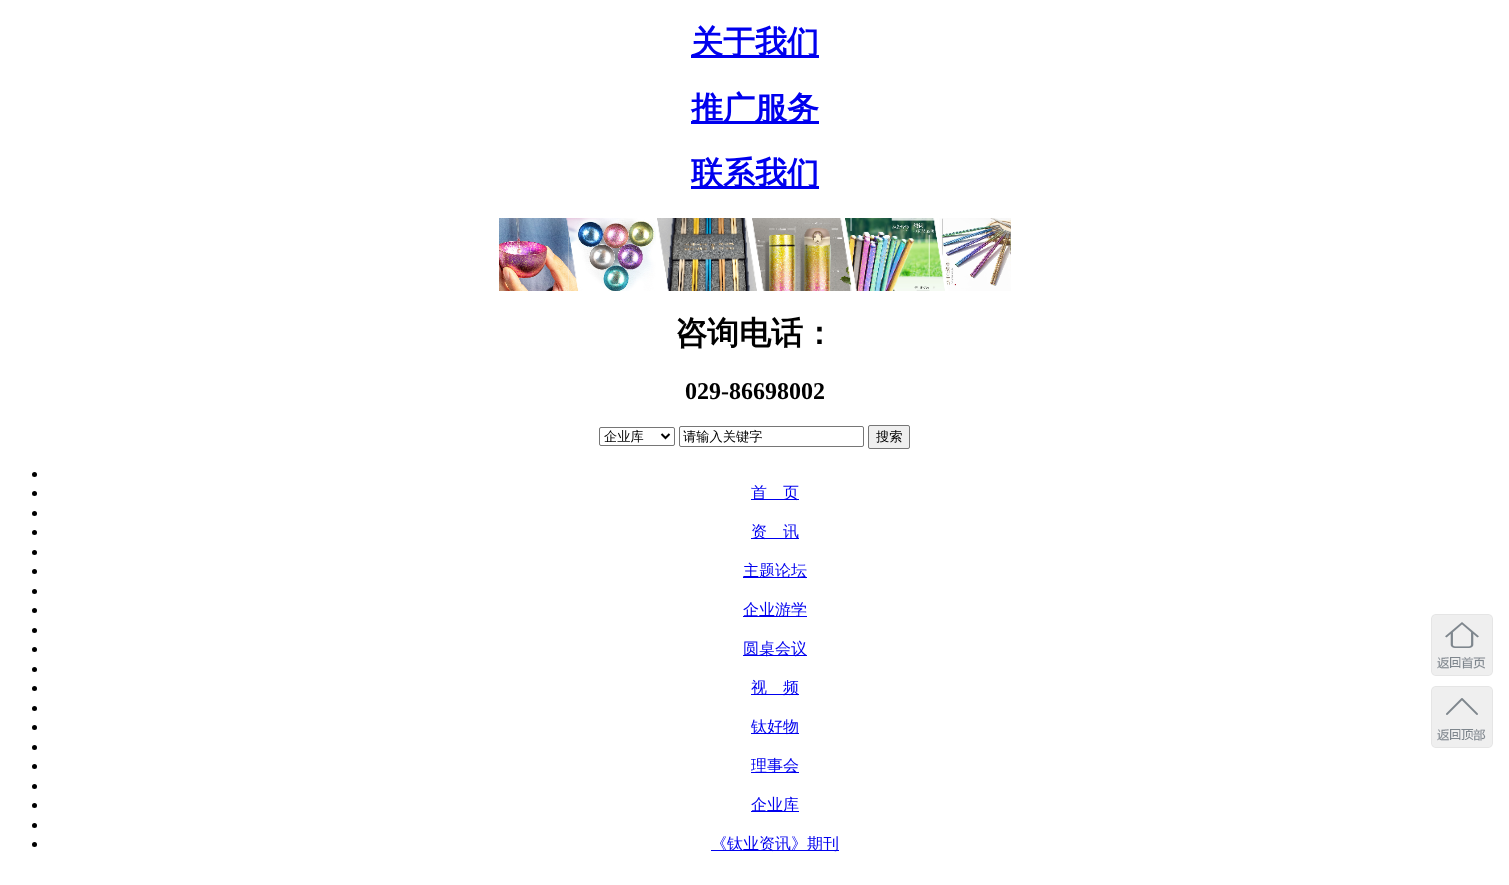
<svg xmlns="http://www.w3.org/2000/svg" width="1509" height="885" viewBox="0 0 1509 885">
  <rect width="100%" height="100%" fill="#ffffff"/>
  <rect x="691" y="55" width="128" height="3" fill="#0000ee"/>
  <text x="691" y="53" font-family="WenQuanYi Zen Hei" font-size="32" font-weight="bold" fill="#0000ee">关于我们</text>
  <rect x="691" y="121" width="128" height="3" fill="#0000ee"/>
  <text x="691" y="119" font-family="WenQuanYi Zen Hei" font-size="32" font-weight="bold" fill="#0000ee">推广服务</text>
  <rect x="691" y="186" width="128" height="3" fill="#0000ee"/>
  <text x="691" y="184" font-family="WenQuanYi Zen Hei" font-size="32" font-weight="bold" fill="#0000ee">联系我们</text>
  <image x="499" y="218" width="512" height="73" href="img1.png"/>
  <text x="675" y="344" font-family="WenQuanYi Zen Hei" font-size="32" font-weight="bold" fill="#000000">咨询电话：</text>
  <text x="685" y="399" font-family="Liberation Serif" font-size="24" font-weight="bold" fill="#000000">029-86698002</text>
  <rect x="599.5" y="427.5" width="75" height="18" rx="1.5" fill="none" stroke="#767676"/>
  <path d="M661.5 434L665.5 438L669.5 434" fill="none" stroke="#000000" stroke-width="2"/>
  <text x="604" y="441" font-family="WenQuanYi Zen Hei" font-size="13.25" font-weight="500" fill="#000000">企业库</text>
  <rect x="679.5" y="426.5" width="184" height="20" rx="1.5" fill="none" stroke="#767676"/>
  <text x="683" y="441" font-family="WenQuanYi Zen Hei" font-size="13.25" font-weight="500" fill="#000000">请输入关键字</text>
  <rect x="868.5" y="425.5" width="41" height="23" rx="1.5" fill="#efefef" stroke="#767676"/>
  <text x="876" y="441" font-family="WenQuanYi Zen Hei" font-size="13.25" font-weight="500" fill="#000000">搜索</text>
  <circle cx="34.5" cy="474.5" r="2.5" fill="#000000"/>
  <circle cx="34.5" cy="493.5" r="2.5" fill="#000000"/>
  <rect x="751" y="499" width="48" height="1" fill="#0000ee"/>
  <text x="751" y="498" font-family="WenQuanYi Zen Hei" font-size="16" font-weight="500" fill="#0000ee">首　页</text>
  <circle cx="34.5" cy="513.5" r="2.5" fill="#000000"/>
  <circle cx="34.5" cy="532.5" r="2.5" fill="#000000"/>
  <rect x="751" y="538" width="48" height="1" fill="#0000ee"/>
  <text x="751" y="537" font-family="WenQuanYi Zen Hei" font-size="16" font-weight="500" fill="#0000ee">资　讯</text>
  <circle cx="34.5" cy="552.5" r="2.5" fill="#000000"/>
  <circle cx="34.5" cy="571.5" r="2.5" fill="#000000"/>
  <rect x="743" y="577" width="64" height="1" fill="#0000ee"/>
  <text x="743" y="576" font-family="WenQuanYi Zen Hei" font-size="16" font-weight="500" fill="#0000ee">主题论坛</text>
  <circle cx="34.5" cy="591.5" r="2.5" fill="#000000"/>
  <circle cx="34.5" cy="610.5" r="2.5" fill="#000000"/>
  <rect x="743" y="616" width="64" height="1" fill="#0000ee"/>
  <text x="743" y="615" font-family="WenQuanYi Zen Hei" font-size="16" font-weight="500" fill="#0000ee">企业游学</text>
  <circle cx="34.5" cy="630.5" r="2.5" fill="#000000"/>
  <circle cx="34.5" cy="649.5" r="2.5" fill="#000000"/>
  <rect x="743" y="655" width="64" height="1" fill="#0000ee"/>
  <text x="743" y="654" font-family="WenQuanYi Zen Hei" font-size="16" font-weight="500" fill="#0000ee">圆桌会议</text>
  <circle cx="34.5" cy="669.5" r="2.5" fill="#000000"/>
  <circle cx="34.5" cy="688.5" r="2.5" fill="#000000"/>
  <rect x="751" y="694" width="48" height="1" fill="#0000ee"/>
  <text x="751" y="693" font-family="WenQuanYi Zen Hei" font-size="16" font-weight="500" fill="#0000ee">视　频</text>
  <circle cx="34.5" cy="708.5" r="2.5" fill="#000000"/>
  <circle cx="34.5" cy="727.5" r="2.5" fill="#000000"/>
  <rect x="751" y="733" width="48" height="1" fill="#0000ee"/>
  <text x="751" y="732" font-family="WenQuanYi Zen Hei" font-size="16" font-weight="500" fill="#0000ee">钛好物</text>
  <circle cx="34.5" cy="747.5" r="2.5" fill="#000000"/>
  <circle cx="34.5" cy="766.5" r="2.5" fill="#000000"/>
  <rect x="751" y="772" width="48" height="1" fill="#0000ee"/>
  <text x="751" y="771" font-family="WenQuanYi Zen Hei" font-size="16" font-weight="500" fill="#0000ee">理事会</text>
  <circle cx="34.5" cy="786.5" r="2.5" fill="#000000"/>
  <circle cx="34.5" cy="805.5" r="2.5" fill="#000000"/>
  <rect x="751" y="811" width="48" height="1" fill="#0000ee"/>
  <text x="751" y="810" font-family="WenQuanYi Zen Hei" font-size="16" font-weight="500" fill="#0000ee">企业库</text>
  <circle cx="34.5" cy="825.5" r="2.5" fill="#000000"/>
  <circle cx="34.5" cy="844.5" r="2.5" fill="#000000"/>
  <rect x="711" y="850" width="128" height="1" fill="#0000ee"/>
  <text x="711" y="849" font-family="WenQuanYi Zen Hei" font-size="16" font-weight="500" fill="#0000ee">《钛业资讯》期刊</text>
  <image x="1431" y="614" width="62" height="62" href="img2.png"/>
  <image x="1431" y="686" width="62" height="62" href="img3.png"/>
</svg>
